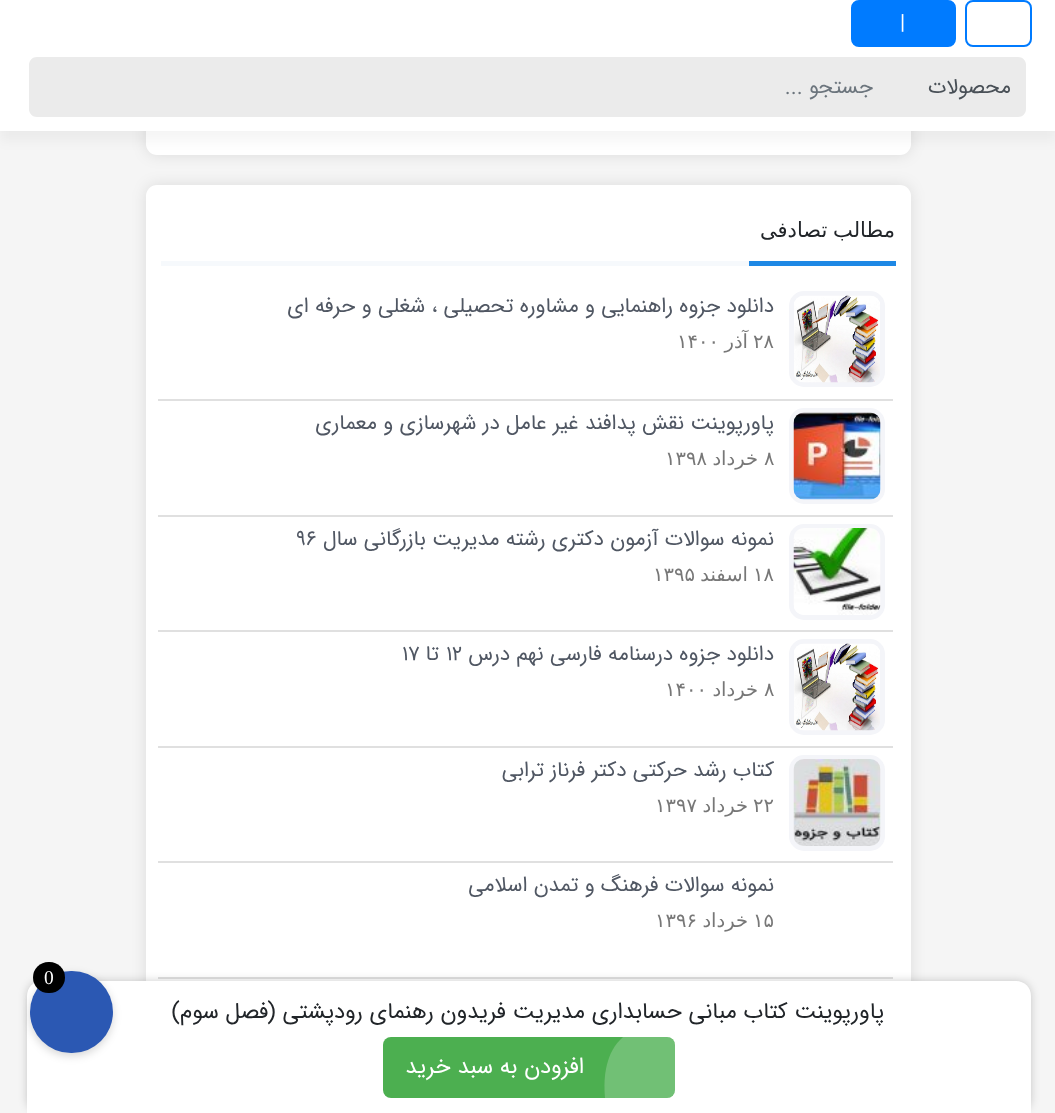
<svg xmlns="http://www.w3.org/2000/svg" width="1055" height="1113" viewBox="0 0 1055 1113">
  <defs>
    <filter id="blur1" x="-50%" y="-200%" width="200%" height="500%"><feGaussianBlur stdDeviation="7.5"/></filter>
    <filter id="blur2" x="-50%" y="-200%" width="200%" height="500%"><feGaussianBlur stdDeviation="6"/></filter>
    <filter id="blur3" x="-50%" y="-200%" width="200%" height="500%"><feGaussianBlur stdDeviation="4"/></filter>
  </defs>
  <rect width="100%" height="100%" fill="#f5f5f5"/>
  <rect x="146" y="-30" width="765" height="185" rx="11" fill="#000000" fill-opacity="0.1" filter="url(#blur1)"/>
  <rect x="146" y="-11" width="765" height="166" rx="11" fill="#ffffff"/>
  <rect x="0" y="11" width="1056" height="130" fill="#000000" fill-opacity="0.04" filter="url(#blur2)"/>
  <rect x="0" y="0" width="1055" height="131" fill="#ffffff"/>
  <rect x="966" y="1" width="65" height="45" rx="7" fill="none" stroke="#007bff" stroke-width="2"/>
  <rect x="852" y="1" width="103" height="45" rx="7" fill="#007bff" stroke="#007bff" stroke-width="2"/>
  <text x="900" y="29" font-family="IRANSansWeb" font-size="21" fill="#ffffff">|</text>
  <path d="M897 57H1018C1022.5 57 1026 60.5 1026 65V109C1026 113.5 1022.5 117 1018 117H897Z" fill="#ebebeb"/>
  <text x="1011" y="93" font-family="IRANSansWeb" font-size="21" direction="rtl" fill="#495057">محصولات</text>
  <rect x="84" y="57" width="813" height="60" fill="#ebebeb"/>
  <text x="873" y="93" font-family="IRANSansWeb" font-size="21" direction="rtl" fill="#6c757d">جستجو ...</text>
  <path d="M37 57H84V117H37C32.5 117 29 113.5 29 109V65C29 60.5 32.5 57 37 57Z" fill="#ebebeb"/>
  <rect x="146" y="185" width="765" height="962" rx="11" fill="#000000" fill-opacity="0.1" filter="url(#blur1)"/>
  <rect x="146" y="185" width="765" height="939" rx="11" fill="#ffffff"/>
  <rect x="161" y="261" width="588" height="5" fill="#f6f9fc"/>
  <text x="895" y="237" word-spacing="-1" font-family="DejaVu Sans" font-size="21" direction="rtl" fill="#212529">مطالب تصادفی</text>
  <rect x="749" y="261" width="147" height="5" fill="#1e88e5"/>
  <rect x="791.5" y="293.5" width="91" height="91" rx="12.5" fill="none" stroke="#f4f5f9" stroke-width="5"/>
  <image x="794" y="295" width="86" height="88" href="img1.png"/>
  <text x="774" y="312" font-family="IRANSansWeb" font-size="21" direction="rtl" fill="#505763">دانلود جزوه راهنمایی و مشاوره تحصیلی ، شغلی و حرفه ای</text>
  <text x="753" y="348" font-family="DejaVu Sans" font-size="19.5" fill="#777777">۲۸</text>
  <text x="748" y="348" font-family="DejaVu Sans" font-size="19.5" direction="rtl" fill="#777777">آذر</text>
  <text x="677" y="348" font-family="DejaVu Sans" font-size="19.5" fill="#777777">۱۴۰۰</text>
  <rect x="158" y="399" width="735" height="2" fill="#e0e0e0"/>
  <rect x="791.5" y="410.5" width="91" height="91" rx="12.5" fill="none" stroke="#f4f5f9" stroke-width="5"/>
  <image x="793" y="412" width="88" height="88" href="img2.png"/>
  <text x="774" y="429" font-family="IRANSansWeb" font-size="21" direction="rtl" fill="#505763">پاورپوینت نقش پدافند غیر عامل در شهرسازی و معماری</text>
  <text x="764" y="465" font-family="DejaVu Sans" font-size="19.5" fill="#777777">۸</text>
  <text x="758" y="465" font-family="DejaVu Sans" font-size="19.5" direction="rtl" fill="#777777">خرداد</text>
  <text x="665" y="465" font-family="DejaVu Sans" font-size="19.5" fill="#777777">۱۳۹۸</text>
  <rect x="158" y="515" width="735" height="2" fill="#e0e0e0"/>
  <rect x="791.5" y="526.5" width="91" height="91" rx="12.5" fill="none" stroke="#f4f5f9" stroke-width="5"/>
  <image x="793" y="528" width="88" height="87" href="img3.png"/>
  <text x="774" y="545" font-family="IRANSansWeb" font-size="21" direction="rtl" fill="#505763">نمونه سوالات آزمون دکتری رشته مدیریت بازرگانی سال</text>
  <text x="296" y="545" font-family="IRANSansWeb" font-size="21" fill="#505763">۹۶</text>
  <text x="753" y="581" font-family="DejaVu Sans" font-size="19.5" fill="#777777">۱۸</text>
  <text x="748" y="581" font-family="DejaVu Sans" font-size="19.5" direction="rtl" fill="#777777">اسفند</text>
  <text x="653" y="581" font-family="DejaVu Sans" font-size="19.5" fill="#777777">۱۳۹۵</text>
  <rect x="158" y="630" width="735" height="2" fill="#e0e0e0"/>
  <rect x="791.5" y="641.5" width="91" height="91" rx="12.5" fill="none" stroke="#f4f5f9" stroke-width="5"/>
  <image x="794" y="643" width="86" height="88" href="img1.png"/>
  <text x="774" y="660" font-family="IRANSansWeb" font-size="21" direction="rtl" fill="#505763">دانلود جزوه درسنامه فارسی نهم درس</text>
  <text x="446" y="660" font-family="IRANSansWeb" font-size="21" fill="#505763">۱۲</text>
  <text x="439" y="660" font-family="IRANSansWeb" font-size="21" direction="rtl" fill="#505763">تا</text>
  <text x="402" y="660" font-family="IRANSansWeb" font-size="21" fill="#505763">۱۷</text>
  <text x="764" y="696" font-family="DejaVu Sans" font-size="19.5" fill="#777777">۸</text>
  <text x="758" y="696" font-family="DejaVu Sans" font-size="19.5" direction="rtl" fill="#777777">خرداد</text>
  <text x="665" y="696" font-family="DejaVu Sans" font-size="19.5" fill="#777777">۱۴۰۰</text>
  <rect x="158" y="746" width="735" height="2" fill="#e0e0e0"/>
  <rect x="791.5" y="757.5" width="91" height="91" rx="12.5" fill="none" stroke="#f4f5f9" stroke-width="5"/>
  <image x="793" y="759" width="88" height="87" href="img4.png"/>
  <text x="774" y="776" font-family="IRANSansWeb" font-size="21" direction="rtl" fill="#505763">کتاب رشد حرکتی دکتر فرناز ترابی</text>
  <text x="753" y="812" font-family="DejaVu Sans" font-size="19.5" fill="#777777">۲۲</text>
  <text x="748" y="812" font-family="DejaVu Sans" font-size="19.5" direction="rtl" fill="#777777">خرداد</text>
  <text x="655" y="812" font-family="DejaVu Sans" font-size="19.5" fill="#777777">۱۳۹۷</text>
  <rect x="158" y="861" width="735" height="2" fill="#e0e0e0"/>
  <text x="774" y="891" font-family="IRANSansWeb" font-size="21" direction="rtl" fill="#505763">نمونه سوالات فرهنگ و تمدن اسلامی</text>
  <text x="753" y="927" font-family="DejaVu Sans" font-size="19.5" fill="#777777">۱۵</text>
  <text x="748" y="927" font-family="DejaVu Sans" font-size="19.5" direction="rtl" fill="#777777">خرداد</text>
  <text x="655" y="927" font-family="DejaVu Sans" font-size="19.5" fill="#777777">۱۳۹۶</text>
  <rect x="158" y="977" width="735" height="2" fill="#e0e0e0"/>
  <rect x="27" y="981" width="1004" height="132" rx="15" fill="#000000" fill-opacity="0.2" filter="url(#blur3)"/>
  <path d="M42 981H1016C1024.5 981 1031 987.5 1031 996V1113H27V996C27 987.5 33.5 981 42 981Z" fill="#ffffff"/>
  <rect x="30" y="974" width="83" height="82" rx="41" fill="#000000" fill-opacity="0.16" filter="url(#blur3)"/>
  <rect x="30" y="971" width="83" height="82" rx="41" fill="#2b58b3"/>
  <rect x="33" y="962" width="32" height="31" rx="15.5" fill="#000000"/>
  <text x="44" y="984" font-family="Liberation Serif" font-size="19.5" fill="#ffffff">0</text>
  <text x="884" y="1018" font-family="IRANSansWeb" font-size="22.5" direction="rtl" fill="#212529">پاورپوینت کتاب مبانی حسابداری مدیریت فریدون رهنمای رودپشتی (فصل سوم)</text>
  <rect x="383" y="1037" width="292" height="61" rx="8" fill="#4caf50"/>
  <path d="M605 1098C603 1076 606 1052 623 1037H667C671 1037 675 1041 675 1045V1090C675 1094 671 1098 667 1098Z" fill="#ffffff" fill-opacity="0.21"/>
  <text x="584" y="1073" font-family="IRANSansWeb" font-size="22.5" direction="rtl" fill="#ffffff">افزودن به سبد خرید</text>
</svg>
